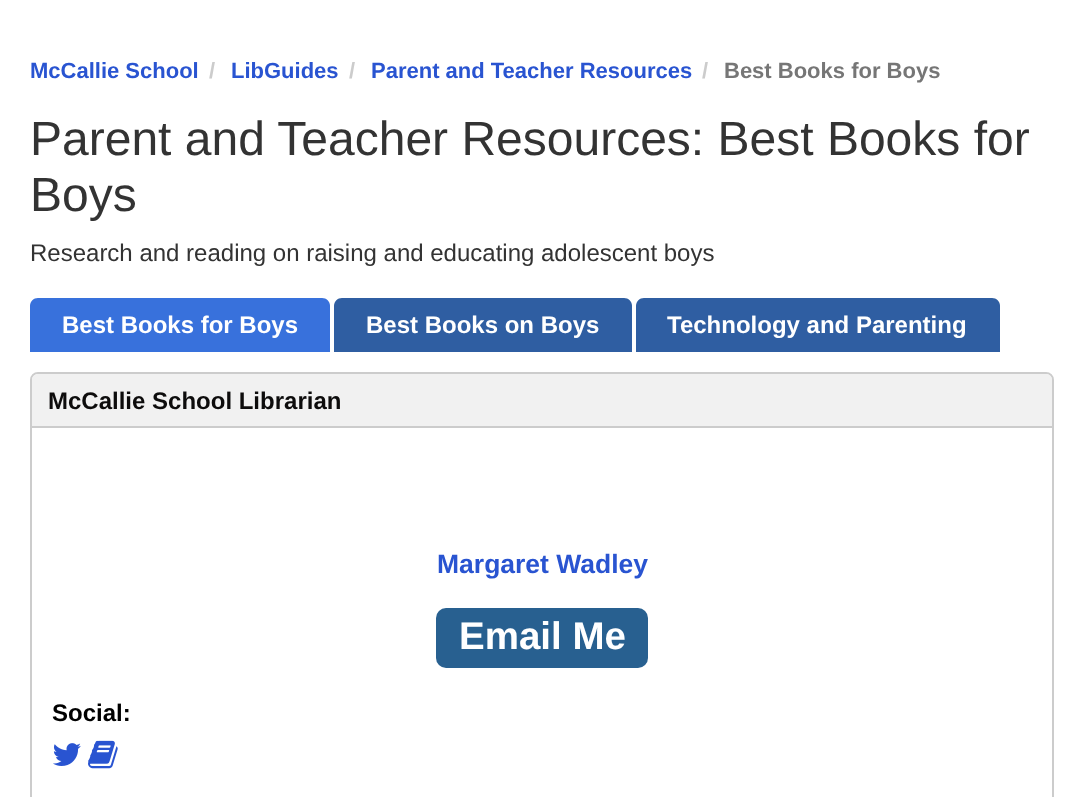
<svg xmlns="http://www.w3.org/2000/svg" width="1083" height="797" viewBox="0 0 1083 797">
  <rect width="100%" height="100%" fill="#ffffff"/>
  <text x="30" y="78" font-family="Liberation Sans" font-size="22" font-weight="bold" fill="#2954d1">McCallie School</text>
  <text x="209" y="78" font-family="Liberation Sans" font-size="22" font-weight="bold" fill="#cccccc">/</text>
  <text x="231" y="78" font-family="Liberation Sans" font-size="22" font-weight="bold" fill="#2954d1">LibGuides</text>
  <text x="349" y="78" font-family="Liberation Sans" font-size="22" font-weight="bold" fill="#cccccc">/</text>
  <text x="371" y="78" font-family="Liberation Sans" font-size="22" font-weight="bold" fill="#2954d1">Parent and Teacher Resources</text>
  <text x="702" y="78" font-family="Liberation Sans" font-size="22" font-weight="bold" fill="#cccccc">/</text>
  <text x="724" y="78" font-family="Liberation Sans" font-size="22" font-weight="bold" fill="#767676">Best Books for Boys</text>
  <text x="30" y="155" font-family="Liberation Sans" font-size="48" fill="#333333">Parent and Teacher Resources: Best Books for</text>
  <text x="30" y="211" font-family="Liberation Sans" font-size="48" fill="#333333">Boys</text>
  <text x="30" y="261" font-family="Liberation Sans" font-size="24" fill="#333333">Research and reading on raising and educating adolescent boys</text>
  <path d="M38 298H322C326.5 298 330 301.5 330 306V352H30V306C30 301.5 33.5 298 38 298Z" fill="#3871dc"/>
  <text x="62" y="333" font-family="Liberation Sans" font-size="24" font-weight="bold" fill="#ffffff">Best Books for Boys</text>
  <path d="M342 298H624C628.5 298 632 301.5 632 306V352H334V306C334 301.5 337.5 298 342 298Z" fill="#2f5ea2"/>
  <text x="366" y="333" font-family="Liberation Sans" font-size="24" font-weight="bold" fill="#ffffff">Best Books on Boys</text>
  <path d="M644 298H992C996.5 298 1000 301.5 1000 306V352H636V306C636 301.5 639.5 298 644 298Z" fill="#2f5ea2"/>
  <text x="667" y="333" font-family="Liberation Sans" font-size="24" font-weight="bold" fill="#ffffff">Technology and Parenting</text>
  <rect x="31" y="373" width="1022" height="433" rx="7" fill="none" stroke="#cccccc" stroke-width="2"/>
  <path d="M38 374H1046C1049.5 374 1052 376.5 1052 380V428H32V380C32 376.5 34.5 374 38 374Z" fill="#f1f1f1"/>
  <rect x="32" y="426" width="1020" height="2" fill="#cccccc"/>
  <text x="48" y="409" font-family="Liberation Sans" font-size="24" font-weight="bold" fill="#0d0c0c">McCallie School Librarian</text>
  <text x="437" y="573" font-family="Liberation Sans" font-size="26.5" font-weight="bold" fill="#2954d1">Margaret Wadley</text>
  <rect x="436" y="608" width="212" height="60" rx="10" fill="#286090"/>
  <text x="459" y="649" font-family="Liberation Sans" font-size="38.5" font-weight="bold" fill="#ffffff">Email Me</text>
  <text x="52" y="721" font-family="Liberation Sans" font-size="24" font-weight="bold" fill="#000000">Social:</text>
  <image x="53" y="743" width="28" height="23" href="img1.png"/>
  <image x="88" y="740" width="30" height="29" href="img2.png"/>
</svg>
